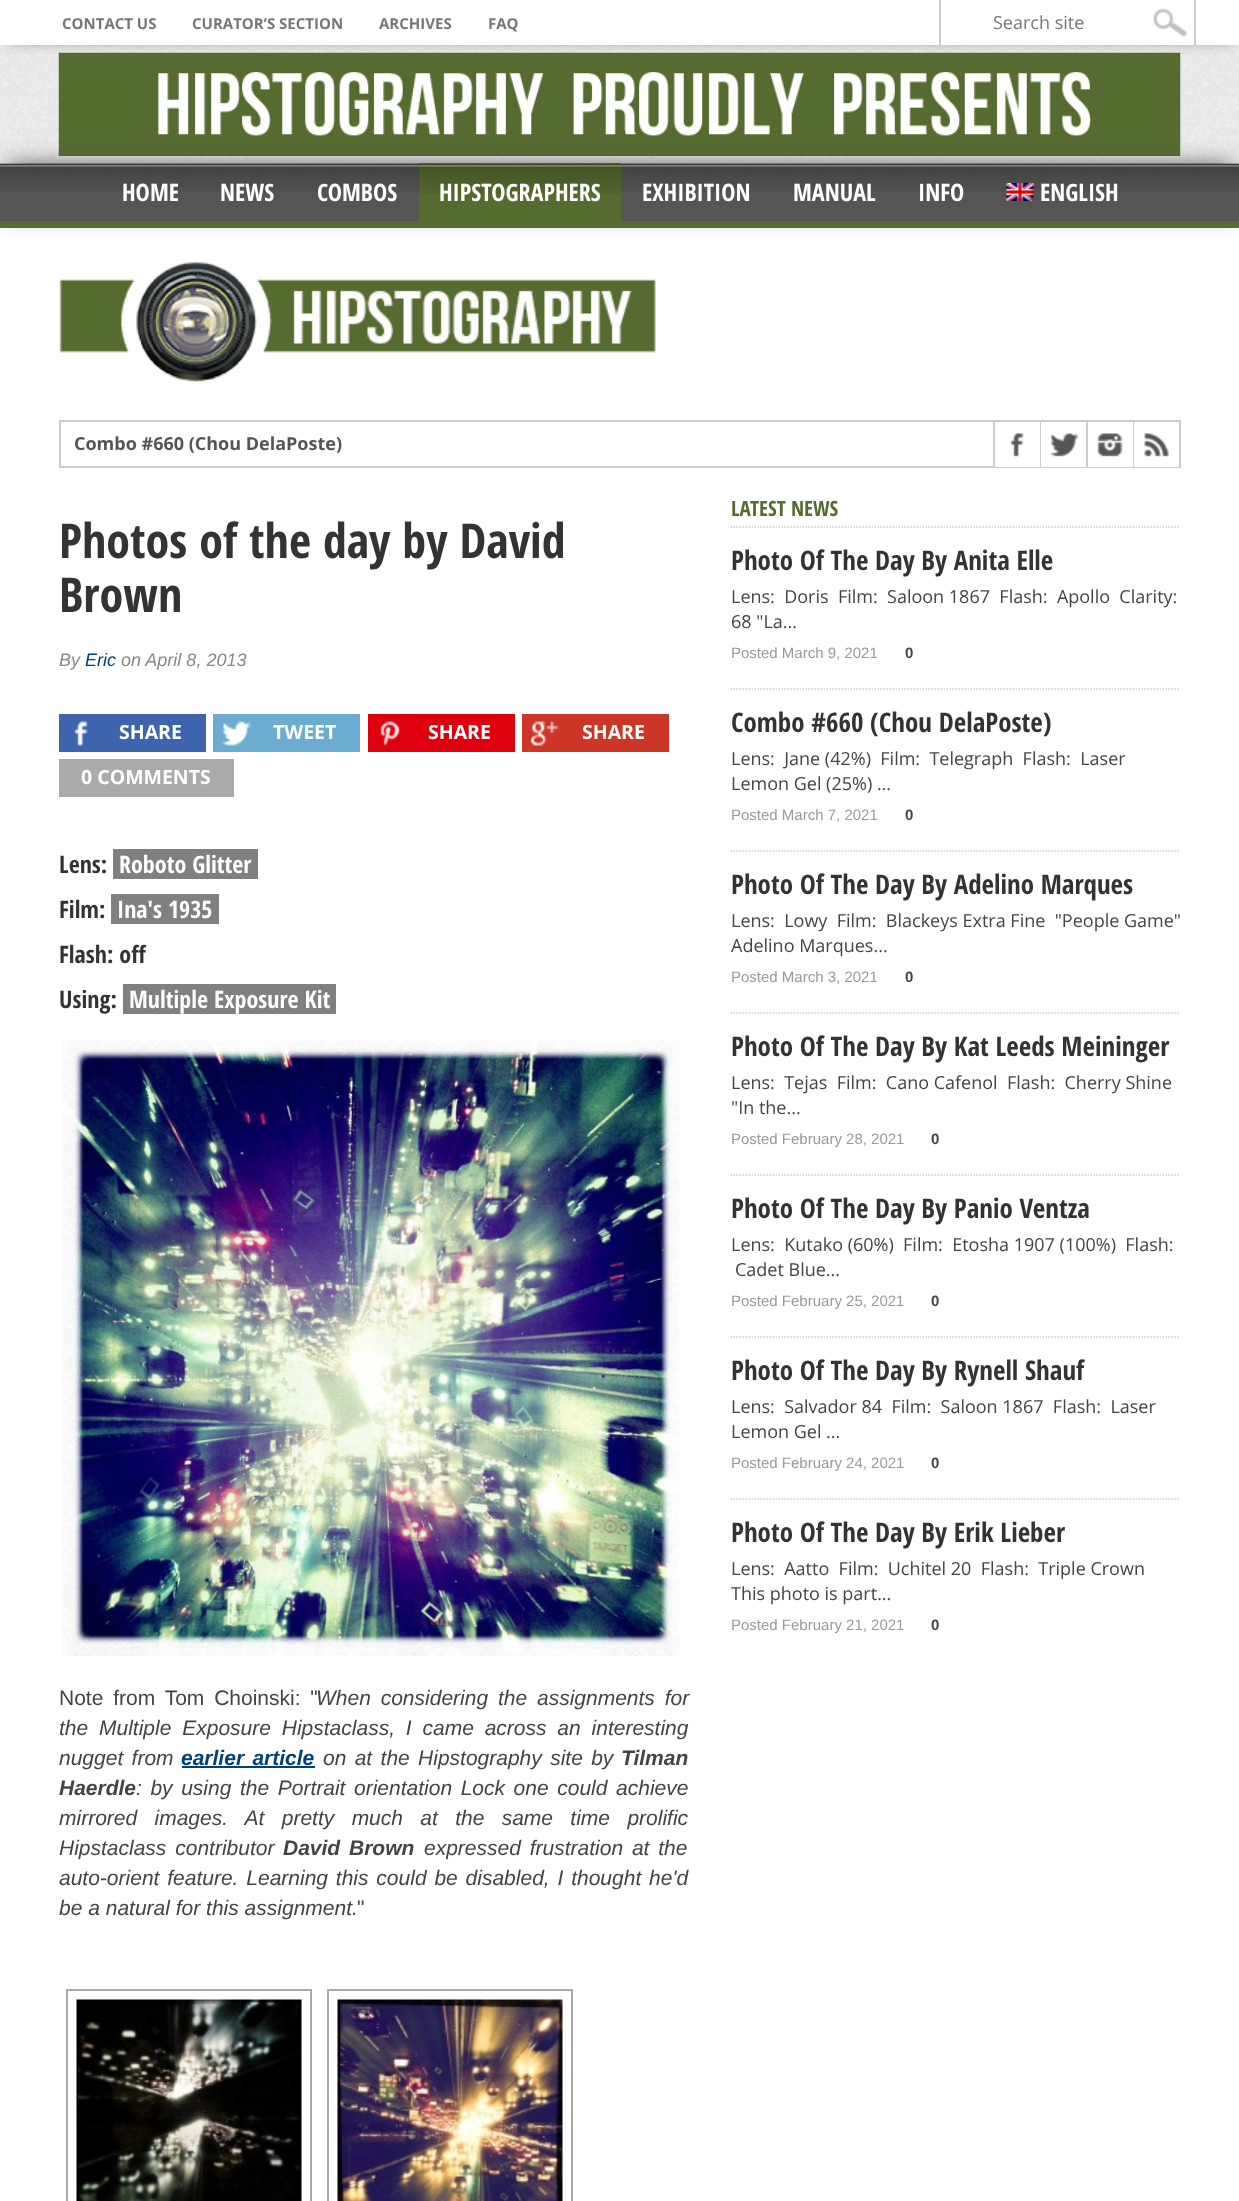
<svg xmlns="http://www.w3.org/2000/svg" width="1239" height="2201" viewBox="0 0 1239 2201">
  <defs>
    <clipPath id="clip1"><rect x="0" y="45" width="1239" height="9"/></clipPath>
    <filter id="blur1" x="-50%" y="-200%" width="200%" height="500%"><feGaussianBlur stdDeviation="7.5"/></filter>
    <filter id="blur2" x="-50%" y="-200%" width="200%" height="500%"><feGaussianBlur stdDeviation="11"/></filter>
  </defs>
  <rect width="100%" height="100%" fill="#ffffff"/>
  <image x="0" y="45" width="1239" height="119" href="img2.png"/>
  <image x="58" y="52" width="1123" height="104" href="img3.png"/>
  <g clip-path="url(#clip1)">
    <rect x="8" y="9" width="1224" height="30" fill="#555555" filter="url(#blur1)"/>
  </g>
  <text x="62" y="29" font-family="Open Sans" font-size="15" font-weight="bold" fill="#777777">CONTACT US</text>
  <text x="192" y="29" font-family="Open Sans" font-size="15" font-weight="bold" fill="#777777">CURATOR’S SECTION</text>
  <text x="379" y="29" font-family="Open Sans" font-size="15" font-weight="bold" fill="#777777">ARCHIVES</text>
  <text x="488" y="29" font-family="Open Sans" font-size="15" font-weight="bold" fill="#777777">FAQ</text>
  <rect x="1194" y="0" width="2" height="45" fill="#cccccc"/>
  <rect x="939" y="0" width="2" height="45" fill="#cccccc"/>
  <image x="1153" y="8" width="34" height="29" href="img1.png"/>
  <text x="993" y="29" font-family="Open Sans" font-size="18" fill="#777777">Search site</text>
  <rect x="8" y="165" width="1224" height="50" fill="#555555" filter="url(#blur2)"/>
  <rect x="0" y="164" width="1239" height="57" fill="#555555"/>
  <image x="0" y="163" width="1239" height="29" href="img4.png"/>
  <rect x="0" y="221" width="1239" height="7" fill="#556b2f"/>
  <text x="122" y="201" font-family="Open Sans Condensed" font-size="24" font-weight="bold" fill="#ffffff">HOME</text>
  <text x="220" y="201" font-family="Open Sans Condensed" font-size="24" font-weight="bold" fill="#ffffff">NEWS</text>
  <text x="317" y="201" font-family="Open Sans Condensed" font-size="24" font-weight="bold" fill="#ffffff">COMBOS</text>
  <rect x="419" y="164" width="202" height="57" fill="#556b2f"/>
  <image x="418" y="163" width="203" height="31" href="img5.png"/>
  <text x="439" y="201" font-family="Open Sans Condensed" font-size="24" font-weight="bold" fill="#ffffff">HIPSTOGRAPHERS</text>
  <text x="642" y="201" font-family="Open Sans Condensed" font-size="24" font-weight="bold" fill="#ffffff">EXHIBITION</text>
  <text x="793" y="201" font-family="Open Sans Condensed" font-size="24" font-weight="bold" fill="#ffffff">MANUAL</text>
  <text x="918" y="201" font-family="Open Sans Condensed" font-size="24" font-weight="bold" fill="#ffffff">INFO</text>
  <image x="1006" y="183" width="28" height="18" href="img6.png"/>
  <text x="1040" y="201" font-family="Open Sans Condensed" font-size="24" font-weight="bold" fill="#ffffff">ENGLISH</text>
  <image x="59" y="262" width="597" height="120" href="img7.png"/>
  <rect x="60" y="421" width="1120" height="46" fill="none" stroke="#cccccc" stroke-width="2"/>
  <text x="74" y="450" font-family="Open Sans" font-size="18" font-weight="bold" fill="#555555">Combo #660 (Chou DelaPoste)</text>
  <rect x="993" y="422" width="2" height="45" fill="#cccccc"/>
  <rect x="995" y="466" width="45" height="1" fill="#ffffff"/>
  <image x="1010" y="433" width="14" height="24" href="img8.png"/>
  <rect x="1040" y="422" width="1" height="45" fill="#cccccc"/>
  <rect x="1041" y="466" width="45" height="1" fill="#ffffff"/>
  <image x="1050" y="433" width="29" height="24" href="img9.png"/>
  <rect x="1086" y="422" width="2" height="45" fill="#cccccc"/>
  <rect x="1088" y="466" width="45" height="1" fill="#ffffff"/>
  <image x="1097" y="433" width="26" height="24" href="img10.png"/>
  <rect x="1133" y="422" width="1" height="45" fill="#cccccc"/>
  <rect x="1134" y="466" width="45" height="1" fill="#ffffff"/>
  <image x="1144" y="433" width="25" height="24" href="img11.png"/>
  <text x="59" y="558" font-family="Open Sans Condensed" font-size="48" font-weight="bold" fill="#333333">Photos of the day by David</text>
  <text x="59" y="612" font-family="Open Sans Condensed" font-size="48" font-weight="bold" fill="#333333">Brown</text>
  <text x="59" y="666" font-family="Liberation Sans" font-size="18" font-style="italic" fill="#888888">By</text>
  <text x="85" y="666" font-family="Liberation Sans" font-size="18" font-style="italic" fill="#004276">Eric</text>
  <text x="121" y="666" font-family="Liberation Sans" font-size="18" font-style="italic" fill="#888888">on April 8, 2013</text>
  <rect x="59" y="714" width="147" height="38" fill="#3e64ad"/>
  <image x="74" y="721" width="14" height="25" href="img12.png"/>
  <text x="119" y="739" font-family="Open Sans" font-size="19.5" font-weight="bold" fill="#ffffff">SHARE</text>
  <rect x="213" y="714" width="147" height="38" fill="#6aadd1"/>
  <image x="222" y="721" width="29" height="25" href="img13.png"/>
  <text x="273" y="739" font-family="Open Sans" font-size="19.5" font-weight="bold" fill="#ffffff">TWEET</text>
  <rect x="368" y="714" width="147" height="38" fill="#de010d"/>
  <image x="380" y="721" width="20" height="25" href="img14.png"/>
  <text x="428" y="739" font-family="Open Sans" font-size="19.5" font-weight="bold" fill="#ffffff">SHARE</text>
  <rect x="522" y="714" width="147" height="38" fill="#cd3627"/>
  <image x="530" y="721" width="29" height="25" href="img15.png"/>
  <text x="582" y="739" font-family="Open Sans" font-size="19.5" font-weight="bold" fill="#ffffff">SHARE</text>
  <rect x="59" y="759" width="175" height="38" fill="#aaaaaa"/>
  <text x="81" y="784" font-family="Open Sans" font-size="19.5" font-weight="bold" fill="#ffffff">0 COMMENTS</text>
  <text x="59" y="873" font-family="Open Sans Condensed" font-size="24" font-weight="bold" fill="#333333">Lens:</text>
  <rect x="113" y="849" width="145" height="30" fill="#808080"/>
  <text x="119" y="873" font-family="Open Sans Condensed" font-size="24" font-weight="bold" fill="#ffffff">Roboto Glitter</text>
  <text x="59" y="918" font-family="Open Sans Condensed" font-size="24" font-weight="bold" fill="#333333">Film:</text>
  <rect x="111" y="894" width="108" height="30" fill="#808080"/>
  <text x="117" y="918" font-family="Open Sans Condensed" font-size="24" font-weight="bold" fill="#ffffff">Ina's 1935</text>
  <text x="59" y="963" font-family="Open Sans Condensed" font-size="24" font-weight="bold" fill="#333333">Flash: off</text>
  <text x="59" y="1008" font-family="Open Sans Condensed" font-size="24" font-weight="bold" fill="#333333">Using:</text>
  <rect x="123" y="984" width="213" height="30" fill="#808080"/>
  <text x="129" y="1008" font-family="Open Sans Condensed" font-size="24" font-weight="bold" fill="#ffffff">Multiple Exposure Kit</text>
  <image x="61" y="1039" width="619" height="617" href="img16.png"/>
  <text x="59" y="1705" word-spacing="4" font-family="Liberation Sans" font-size="21" fill="#444444">Note from Tom Choinski: "</text>
  <text x="316" y="1705" word-spacing="4" font-family="Liberation Sans" font-size="21" font-style="italic" fill="#444444">When considering the assignments for</text>
  <text x="59" y="1735" word-spacing="5" font-family="Liberation Sans" font-size="21" font-style="italic" fill="#444444">the Multiple Exposure Hipstaclass, I came across an interesting</text>
  <text x="59" y="1765" word-spacing="2.5" font-family="Liberation Sans" font-size="21" font-style="italic" fill="#444444">nugget from</text>
  <text x="181" y="1765" word-spacing="2.5" font-family="Liberation Sans" font-size="21" font-weight="bold" font-style="italic" fill="#004276">earlier article</text>
  <rect x="182" y="1766" width="133" height="2" fill="#004276"/>
  <text x="323" y="1765" word-spacing="2.5" font-family="Liberation Sans" font-size="21" font-style="italic" fill="#444444">on at the Hipstography site by</text>
  <text x="621" y="1765" font-family="Liberation Sans" font-size="21" font-weight="bold" font-style="italic" fill="#444444">Tilman</text>
  <text x="59" y="1795" font-family="Liberation Sans" font-size="21" font-weight="bold" font-style="italic" fill="#444444">Haerdle</text>
  <text x="136" y="1795" word-spacing="2.75" font-family="Liberation Sans" font-size="21" font-style="italic" fill="#444444">: by using the Portrait orientation Lock one could achieve</text>
  <text x="59" y="1825" word-spacing="11.5" font-family="Liberation Sans" font-size="21" font-style="italic" fill="#444444">mirrored images. At pretty much at the same time prolific</text>
  <text x="59" y="1855" word-spacing="3" font-family="Liberation Sans" font-size="21" font-style="italic" fill="#444444">Hipstaclass contributor</text>
  <text x="283" y="1855" word-spacing="3" font-family="Liberation Sans" font-size="21" font-weight="bold" font-style="italic" fill="#444444">David Brown</text>
  <text x="424" y="1855" word-spacing="3" font-family="Liberation Sans" font-size="21" font-style="italic" fill="#444444">expressed frustration at the</text>
  <text x="59" y="1885" word-spacing="2" font-family="Liberation Sans" font-size="21" font-style="italic" fill="#444444">auto-orient feature. Learning this could be disabled, I thought he'd</text>
  <text x="59" y="1915" font-family="Liberation Sans" font-size="21" font-style="italic" fill="#444444">be a natural for this assignment.</text>
  <text x="357" y="1915" font-family="Liberation Sans" font-size="21" fill="#444444">"</text>
  <rect x="67" y="1990" width="244" height="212" fill="none" stroke="#a9a9a9" stroke-width="2"/>
  <image x="76" y="1999" width="226" height="202" href="img17.png"/>
  <rect x="328" y="1990" width="244" height="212" fill="none" stroke="#a9a9a9" stroke-width="2"/>
  <image x="337" y="1999" width="226" height="202" href="img18.png"/>
  <path d="M730.5 527H1180.5" fill="none" stroke="#cccccc" stroke-width="1.5" stroke-dasharray="1.5 1.5"/>
  <text x="731" y="516" font-family="Open Sans Condensed" font-size="21" font-weight="bold" fill="#556b2f">LATEST NEWS</text>
  <path d="M730.5 689H1180.5" fill="none" stroke="#cccccc" stroke-width="1.5" stroke-dasharray="1.5 1.5"/>
  <text x="731" y="570" font-family="Open Sans Condensed" font-size="27" font-weight="bold" fill="#333333">Photo Of The Day By Anita Elle</text>
  <text x="731" y="603" font-family="Open Sans" font-size="18" fill="#444444" xml:space="preserve">Lens:  Doris  Film:  Saloon 1867  Flash:  Apollo  Clarity:</text>
  <text x="731" y="628" font-family="Open Sans" font-size="18" fill="#444444">68 "La...</text>
  <text x="731" y="658" font-family="Liberation Sans" font-size="15" fill="#999999">Posted March 9, 2021</text>
  <text x="905" y="658" font-family="Liberation Sans" font-size="15" font-weight="bold" fill="#444444">0</text>
  <path d="M730.5 851H1180.5" fill="none" stroke="#cccccc" stroke-width="1.5" stroke-dasharray="1.5 1.5"/>
  <text x="731" y="732" font-family="Open Sans Condensed" font-size="27" font-weight="bold" fill="#333333">Combo #660 (Chou DelaPoste)</text>
  <text x="731" y="765" font-family="Open Sans" font-size="18" fill="#444444" xml:space="preserve">Lens:  Jane (42%)  Film:  Telegraph  Flash:  Laser</text>
  <text x="731" y="790" font-family="Open Sans" font-size="18" fill="#444444">Lemon Gel (25%) ...</text>
  <text x="731" y="820" font-family="Liberation Sans" font-size="15" fill="#999999">Posted March 7, 2021</text>
  <text x="905" y="820" font-family="Liberation Sans" font-size="15" font-weight="bold" fill="#444444">0</text>
  <path d="M730.5 1013H1180.5" fill="none" stroke="#cccccc" stroke-width="1.5" stroke-dasharray="1.5 1.5"/>
  <text x="731" y="894" font-family="Open Sans Condensed" font-size="27" font-weight="bold" fill="#333333">Photo Of The Day By Adelino Marques</text>
  <text x="731" y="927" font-family="Open Sans" font-size="18" fill="#444444" xml:space="preserve">Lens:  Lowy  Film:  Blackeys Extra Fine  "People Game"</text>
  <text x="731" y="952" font-family="Open Sans" font-size="18" fill="#444444">Adelino Marques...</text>
  <text x="731" y="982" font-family="Liberation Sans" font-size="15" fill="#999999">Posted March 3, 2021</text>
  <text x="905" y="982" font-family="Liberation Sans" font-size="15" font-weight="bold" fill="#444444">0</text>
  <path d="M730.5 1175H1180.5" fill="none" stroke="#cccccc" stroke-width="1.5" stroke-dasharray="1.5 1.5"/>
  <text x="731" y="1056" font-family="Open Sans Condensed" font-size="27" font-weight="bold" fill="#333333">Photo Of The Day By Kat Leeds Meininger</text>
  <text x="731" y="1089" font-family="Open Sans" font-size="18" fill="#444444" xml:space="preserve">Lens:  Tejas  Film:  Cano Cafenol  Flash:  Cherry Shine</text>
  <text x="731" y="1114" font-family="Open Sans" font-size="18" fill="#444444">"In the...</text>
  <text x="731" y="1144" font-family="Liberation Sans" font-size="15" fill="#999999">Posted February 28, 2021</text>
  <text x="931" y="1144" font-family="Liberation Sans" font-size="15" font-weight="bold" fill="#444444">0</text>
  <path d="M730.5 1337H1180.5" fill="none" stroke="#cccccc" stroke-width="1.5" stroke-dasharray="1.5 1.5"/>
  <text x="731" y="1218" font-family="Open Sans Condensed" font-size="27" font-weight="bold" fill="#333333">Photo Of The Day By Panio Ventza</text>
  <text x="731" y="1251" font-family="Open Sans" font-size="18" fill="#444444" xml:space="preserve">Lens:  Kutako (60%)  Film:  Etosha 1907 (100%)  Flash:</text>
  <text x="735" y="1276" font-family="Open Sans" font-size="18" fill="#444444">Cadet Blue...</text>
  <text x="731" y="1306" font-family="Liberation Sans" font-size="15" fill="#999999">Posted February 25, 2021</text>
  <text x="931" y="1306" font-family="Liberation Sans" font-size="15" font-weight="bold" fill="#444444">0</text>
  <path d="M730.5 1499H1180.5" fill="none" stroke="#cccccc" stroke-width="1.5" stroke-dasharray="1.5 1.5"/>
  <text x="731" y="1380" font-family="Open Sans Condensed" font-size="27" font-weight="bold" fill="#333333">Photo Of The Day By Rynell Shauf</text>
  <text x="731" y="1413" font-family="Open Sans" font-size="18" fill="#444444" xml:space="preserve">Lens:  Salvador 84  Film:  Saloon 1867  Flash:  Laser</text>
  <text x="731" y="1438" font-family="Open Sans" font-size="18" fill="#444444">Lemon Gel ...</text>
  <text x="731" y="1468" font-family="Liberation Sans" font-size="15" fill="#999999">Posted February 24, 2021</text>
  <text x="931" y="1468" font-family="Liberation Sans" font-size="15" font-weight="bold" fill="#444444">0</text>
  <text x="731" y="1542" font-family="Open Sans Condensed" font-size="27" font-weight="bold" fill="#333333">Photo Of The Day By Erik Lieber</text>
  <text x="731" y="1575" font-family="Open Sans" font-size="18" fill="#444444" xml:space="preserve">Lens:  Aatto  Film:  Uchitel 20  Flash:  Triple Crown</text>
  <text x="731" y="1600" font-family="Open Sans" font-size="18" fill="#444444">This photo is part...</text>
  <text x="731" y="1630" font-family="Liberation Sans" font-size="15" fill="#999999">Posted February 21, 2021</text>
  <text x="931" y="1630" font-family="Liberation Sans" font-size="15" font-weight="bold" fill="#444444">0</text>
</svg>
